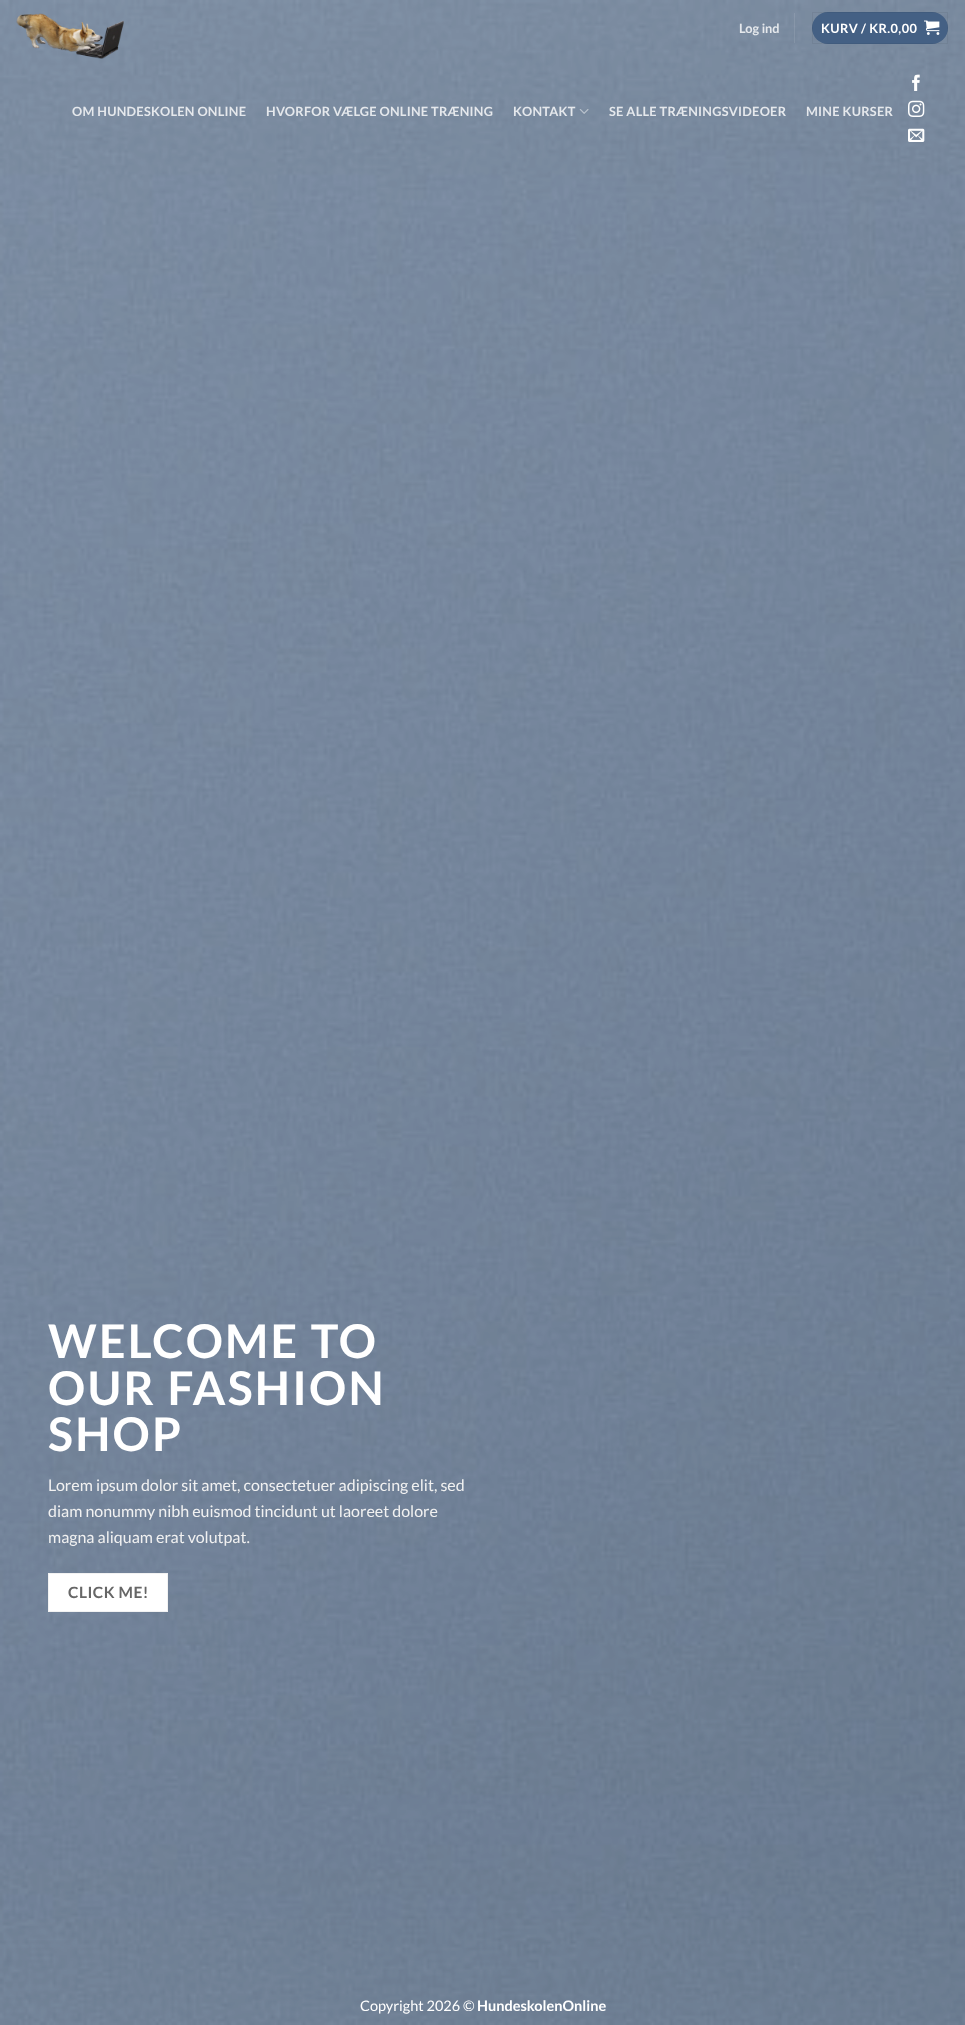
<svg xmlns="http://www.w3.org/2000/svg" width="965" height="2025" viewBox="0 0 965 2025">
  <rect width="100%" height="100%" fill="#ffffff"/>
  <image x="0" y="0" width="965" height="2025" href="img7.png"/>
  <image x="16" y="13" width="108" height="46" href="img1.png"/>
  <text x="739" y="33" font-family="Lato" font-size="12.75" font-weight="bold" fill="#e5e8ec">Log ind</text>
  <rect x="794" y="13" width="1" height="30" fill="#ffffff" fill-opacity="0.1"/>
  <rect x="812" y="12" width="136" height="32" rx="16" fill="#446084"/>
  <rect x="812.5" y="12.5" width="135" height="31" fill="none" stroke="#000000" stroke-opacity="0.05"/>
  <text x="821" y="33" font-family="Lato" font-size="12.75" font-weight="bold" letter-spacing="0.4" fill="#ffffff">KURV / KR.0,00</text>
  <image x="924" y="20" width="16" height="15" href="img2.png"/>
  <text x="72" y="116" font-family="Lato" font-size="12.75" font-weight="bold" letter-spacing="0.25" fill="#e5e8ec">OM HUNDESKOLEN ONLINE</text>
  <text x="266" y="116" font-family="Lato" font-size="12.75" font-weight="bold" letter-spacing="0.25" fill="#e5e8ec">HVORFOR VÆLGE ONLINE TRÆNING</text>
  <text x="513" y="116" font-family="Lato" font-size="12.75" font-weight="bold" letter-spacing="0.25" fill="#e5e8ec">KONTAKT</text>
  <image x="579" y="109" width="10" height="5" href="img3.png"/>
  <text x="609" y="116" font-family="Lato" font-size="12.75" font-weight="bold" letter-spacing="0.25" fill="#e5e8ec">SE ALLE TRÆNINGSVIDEOER</text>
  <text x="806" y="116" font-family="Lato" font-size="12.75" font-weight="bold" letter-spacing="0.25" fill="#e5e8ec">MINE KURSER</text>
  <image x="912" y="74" width="8" height="17" href="img4.png"/>
  <image x="908" y="100" width="17" height="17" href="img5.png"/>
  <image x="908" y="128" width="17" height="14" href="img6.png"/>
  <text x="48" y="1358" font-family="Lato" font-size="46.5" font-weight="bold" letter-spacing="2.25" fill="#ffffff">WELCOME TO</text>
  <text x="48" y="1405" font-family="Lato" font-size="46.5" font-weight="bold" letter-spacing="2.25" fill="#ffffff">OUR FASHION</text>
  <text x="48" y="1451" font-family="Lato" font-size="46.5" font-weight="bold" letter-spacing="2.25" fill="#ffffff">SHOP</text>
  <text x="48" y="1491" font-family="Lato" font-size="16" fill="#f1f1f1">Lorem ipsum dolor sit amet, consectetuer adipiscing elit, sed</text>
  <text x="48" y="1517" font-family="Lato" font-size="16" fill="#f1f1f1">diam nonummy nibh euismod tincidunt ut laoreet dolore</text>
  <text x="48" y="1543" font-family="Lato" font-size="16" fill="#f1f1f1">magna aliquam erat volutpat.</text>
  <rect x="48.5" y="1573.5" width="119" height="38" fill="#ffffff" stroke="#f2f2f2"/>
  <text x="68" y="1598" font-family="Lato" font-size="15.5" font-weight="bold" letter-spacing="0.5" fill="#666666">CLICK ME!</text>
  <text x="360" y="2011" font-family="Lato" font-size="14.5" fill="#ffffff">Copyright 2026 ©</text>
  <text x="477" y="2011" font-family="Lato" font-size="14.5" font-weight="bold" fill="#ffffff">HundeskolenOnline</text>
</svg>
